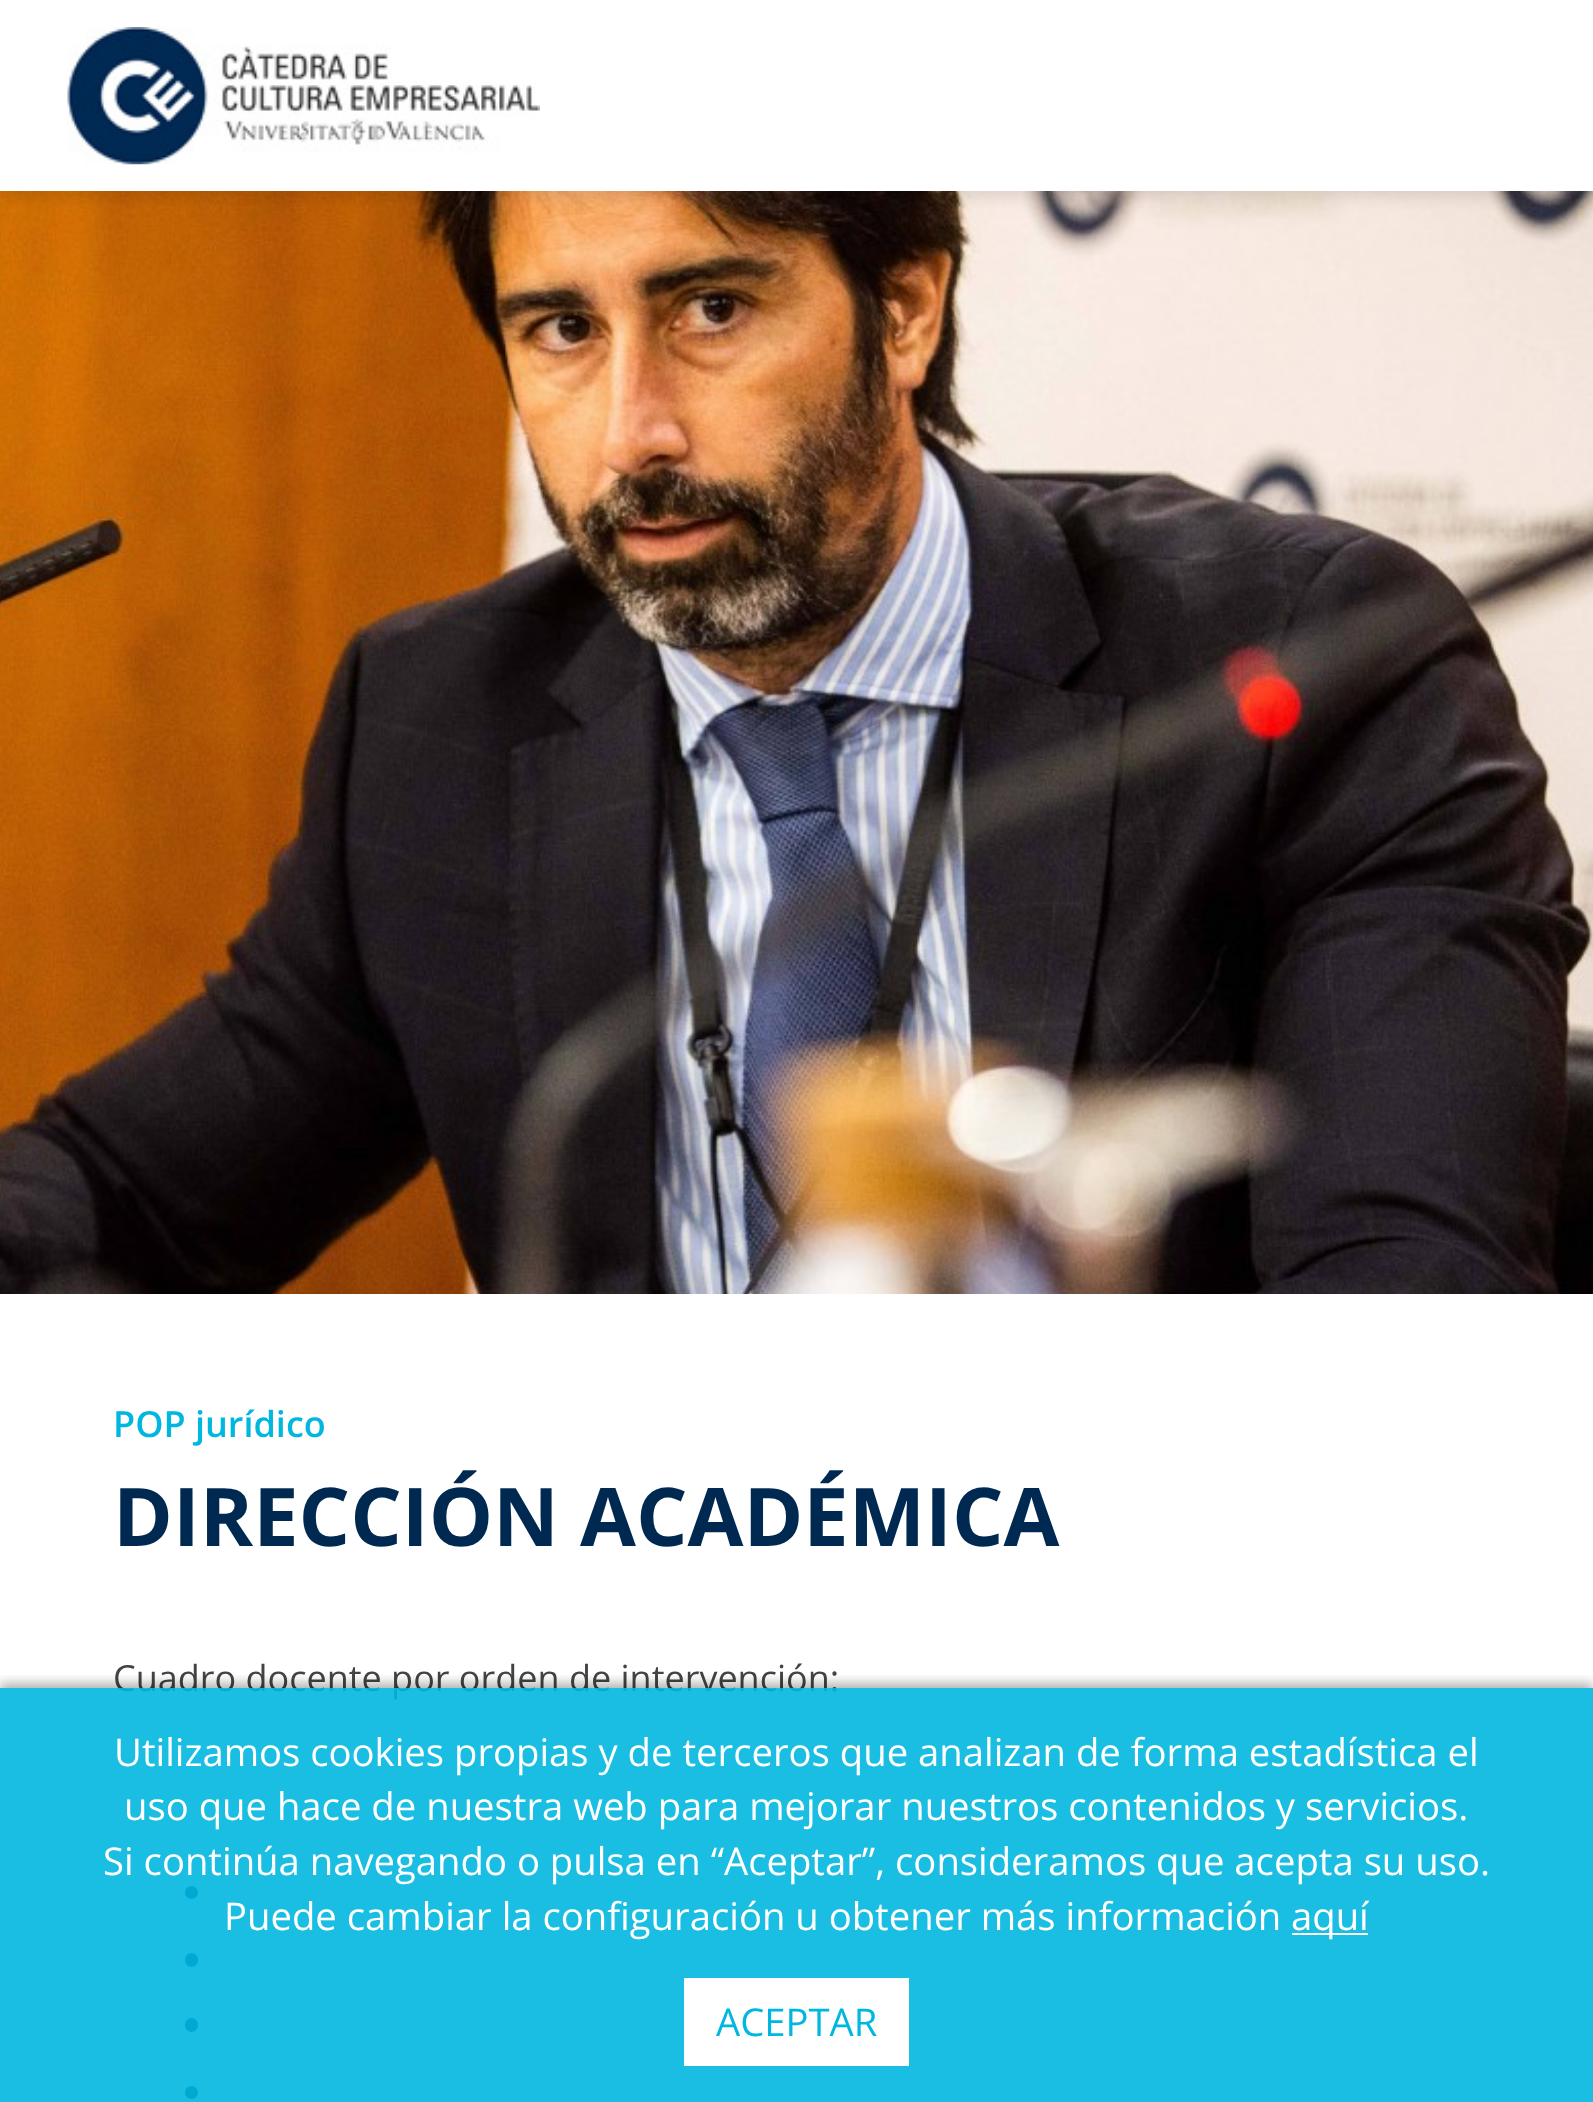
<svg xmlns="http://www.w3.org/2000/svg" width="1593" height="2102" viewBox="0 0 1593 2102">
  <defs>
    <filter id="blur1" x="-50%" y="-200%" width="200%" height="500%"><feGaussianBlur stdDeviation="7"/></filter>
    <clipPath id="clip1"><rect x="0" y="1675" width="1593" height="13"/></clipPath>
    <filter id="blur2" x="-50%" y="-200%" width="200%" height="500%"><feGaussianBlur stdDeviation="5.5"/></filter>
  </defs>
  <rect width="100%" height="100%" fill="#ffffff"/>
  <image x="0" y="191" width="1593" height="1103" href="img2.png"/>
  <rect x="0" y="7" width="1593" height="191" fill="#000000" fill-opacity="0.1" filter="url(#blur1)"/>
  <rect x="0" y="0" width="1593" height="191" fill="#ffffff"/>
  <image x="67" y="27" width="473" height="138" href="img1.png"/>
  <text x="113" y="1437" font-family="Open Sans" font-size="36" font-weight="600" fill="#00b7df">POP jurídico</text>
  <text x="113" y="1546" font-family="Open Sans" font-size="81" font-weight="bold" fill="#002952">DIRECCIÓN ACADÉMICA</text>
  <text x="113" y="1691" font-family="Open Sans" font-size="36" fill="#434343">Cuadro docente por orden de intervención:</text>
  <circle cx="191.5" cy="1892.5" r="6.5" fill="#002952"/>
  <rect x="185" y="1953" width="13" height="14" rx="6.5" fill="#002952"/>
  <rect x="185" y="2018" width="13" height="14" rx="6.5" fill="#002952"/>
  <circle cx="191.5" cy="2092.5" r="6.5" fill="#002952"/>
  <g clip-path="url(#clip1)">
    <rect x="0" y="1683" width="1593" height="416" fill="#000000" fill-opacity="0.3" filter="url(#blur2)"/>
  </g>
  <rect x="0" y="1688" width="1593" height="414" fill="#00b7df" fill-opacity="0.9"/>
  <text x="114" y="1766" font-family="Open Sans" font-size="38.25" fill="#ffffff">Utilizamos cookies propias y de terceros que analizan de forma estadística el</text>
  <text x="124" y="1820" font-family="Open Sans" font-size="38.25" fill="#ffffff">uso que hace de nuestra web para mejorar nuestros contenidos y servicios.</text>
  <text x="103" y="1875" font-family="Open Sans" font-size="38.25" fill="#ffffff">Si continúa navegando o pulsa en “Aceptar”, consideramos que acepta su uso.</text>
  <text x="224" y="1930" font-family="Open Sans" font-size="38.25" fill="#ffffff">Puede cambiar la configuración u obtener más información</text>
  <rect x="1292" y="1933" width="76" height="2" fill="#ffffff"/>
  <text x="1291" y="1930" font-family="Open Sans" font-size="38.25" fill="#ffffff">aquí</text>
  <rect x="684" y="1978" width="225" height="88" fill="#ffffff"/>
  <text x="716" y="2036" font-family="Open Sans" font-size="38.25" fill="#00b7df">ACEPTAR</text>
</svg>
